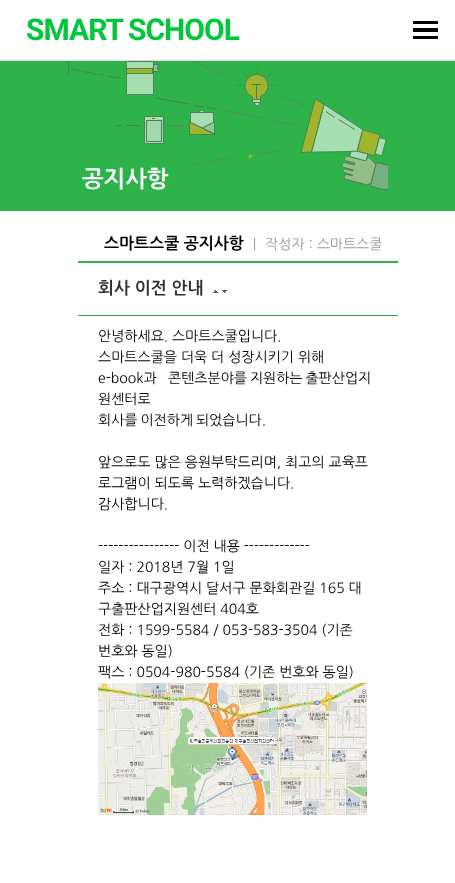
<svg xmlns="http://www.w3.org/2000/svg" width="455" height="883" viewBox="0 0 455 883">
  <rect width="100%" height="100%" fill="#ffffff"/>
  <rect x="0" y="60" width="455" height="1" fill="#dbdbdb"/>
  <text x="26" y="40" font-family="Roboto" font-size="30" font-weight="bold" letter-spacing="-1" fill="#00c73c">SMART</text>
  <text x="128" y="40" font-family="Roboto" font-size="30" font-weight="bold" letter-spacing="-1" fill="#00c73c">SCHOOL</text>
  <rect x="413" y="21" width="25" height="3" fill="#000000"/>
  <rect x="413" y="28" width="25" height="4" fill="#000000"/>
  <rect x="413" y="36" width="25" height="3" fill="#000000"/>
  <rect x="0" y="61" width="455" height="150" fill="#2eb34a"/>
  <image x="68" y="61" width="320" height="129" href="img1.png"/>
  <text x="82" y="187" font-family="NanumGothic" font-size="23" font-weight="bold" fill="#ffffff">공지사항</text>
  <text x="104" y="249" font-family="NanumGothic" font-size="16" font-weight="bold" fill="#000000">스마트스쿨 공지사항</text>
  <text x="248" y="249" font-family="NanumGothic" font-size="14" fill="#999999">｜ 작성자 : 스마트스쿨</text>
  <rect x="78" y="261" width="320" height="2" fill="#2eb34a"/>
  <rect x="78" y="315" width="320" height="1" fill="#2eb34a"/>
  <text x="98" y="294" font-family="NanumGothic" font-size="17" font-weight="bold" fill="#303030">회사 이전 안내</text>
  <image x="213" y="290" width="5" height="3" href="img2.png"/>
  <image x="222" y="290" width="5" height="3" href="img3.png"/>
  <text x="98" y="341" font-family="NanumGothic" font-size="14" fill="#000000">안녕하세요. 스마트스쿨입니다.</text>
  <text x="98" y="362" font-family="NanumGothic" font-size="14" fill="#000000">스마트스쿨을 더욱 더 성장시키기 위해</text>
  <text x="98" y="383" word-spacing="-1" font-family="NanumGothic" font-size="14" fill="#000000">e-book과</text>
  <text x="168" y="383" word-spacing="-1" font-family="NanumGothic" font-size="14" fill="#000000">콘텐츠분야를 지원하는 출판산업지</text>
  <text x="98" y="404" font-family="NanumGothic" font-size="14" fill="#000000">원센터로</text>
  <text x="98" y="425" word-spacing="-1" font-family="NanumGothic" font-size="14" fill="#000000">회사를 이전하게 되었습니다.</text>
  <text x="98" y="467" font-family="NanumGothic" font-size="14" fill="#000000">앞으로도 많은 응원부탁드리며, 최고의 교육프</text>
  <text x="98" y="488" font-family="NanumGothic" font-size="14" fill="#000000">로그램이 되도록 노력하겠습니다.</text>
  <text x="98" y="509" font-family="NanumGothic" font-size="14" fill="#000000">감사합니다.</text>
  <text x="98" y="551" font-family="NanumGothic" font-size="14" fill="#000000">---------------- 이전 내용 -------------</text>
  <text x="98" y="572" font-family="NanumGothic" font-size="14" fill="#000000">일자 : 2018년 7월 1일</text>
  <text x="98" y="593" font-family="NanumGothic" font-size="14" fill="#000000">주소 : 대구광역시 달서구 문화회관길 165 대</text>
  <text x="98" y="614" font-family="NanumGothic" font-size="14" fill="#000000">구출판산업지원센터 404호</text>
  <text x="98" y="635" font-family="NanumGothic" font-size="14" fill="#000000">전화 : 1599-5584 / 053-583-3504 (기존</text>
  <text x="98" y="656" font-family="NanumGothic" font-size="14" fill="#000000">번호와 동일)</text>
  <text x="98" y="677" font-family="NanumGothic" font-size="14" fill="#000000">팩스 : 0504-980-5584 (기존 번호와 동일)</text>
  <image x="98" y="683" width="269" height="132" href="img4.png"/>
</svg>
